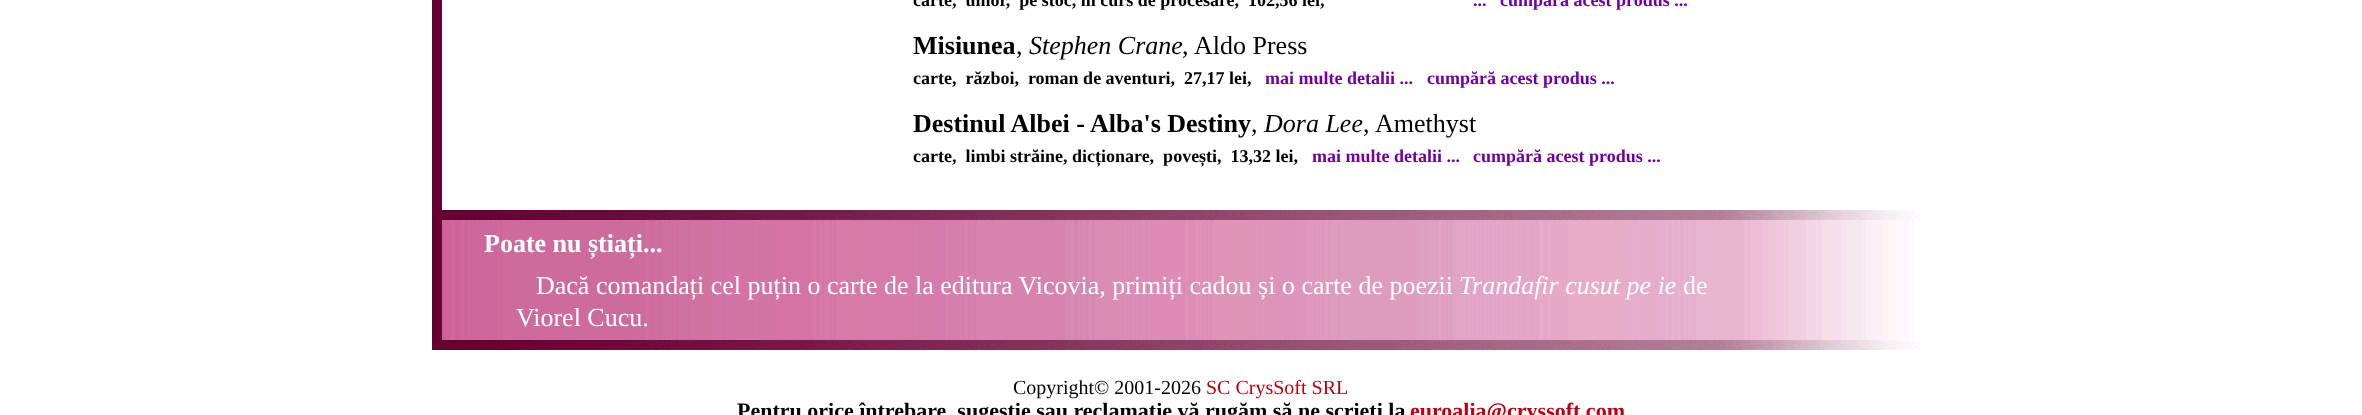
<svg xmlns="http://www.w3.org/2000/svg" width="2362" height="415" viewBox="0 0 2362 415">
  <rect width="100%" height="100%" fill="#ffffff"/>
  <rect x="432" y="0" width="10" height="210" fill="#660033"/>
  <text x="913" y="6" font-family="Liberation Serif" font-size="18" font-weight="bold" fill="#000000" xml:space="preserve">carte,  umor,  pe stoc, în curs de procesare,  102,56 lei,</text>
  <text x="1473" y="6" font-family="Liberation Serif" font-size="18" font-weight="bold" fill="#7000a0">...</text>
  <text x="1500" y="6" font-family="Liberation Serif" font-size="18" font-weight="bold" fill="#7000a0">cumpără acest produs ...</text>
  <text x="913" y="54" font-family="Liberation Serif" font-size="26" font-weight="bold" fill="#000000">Misiunea</text>
  <text x="1016" y="54" font-family="Liberation Serif" font-size="26" fill="#000000">,</text>
  <text x="1029" y="54" font-family="Liberation Serif" font-size="26" font-style="italic" fill="#000000">Stephen Crane</text>
  <text x="1182" y="54" font-family="Liberation Serif" font-size="26" fill="#000000">,</text>
  <text x="1194" y="54" font-family="Liberation Serif" font-size="26" fill="#000000">Aldo Press</text>
  <text x="913" y="84" font-family="Liberation Serif" font-size="18" font-weight="bold" fill="#000000" xml:space="preserve">carte,  război,  roman de aventuri,  27,17 lei,</text>
  <text x="1265" y="84" font-family="Liberation Serif" font-size="18" font-weight="bold" fill="#7000a0">mai multe detalii ...</text>
  <text x="1427" y="84" font-family="Liberation Serif" font-size="18" font-weight="bold" fill="#7000a0">cumpără acest produs ...</text>
  <text x="913" y="132" font-family="Liberation Serif" font-size="26" font-weight="bold" fill="#000000">Destinul Albei - Alba's Destiny</text>
  <text x="1251" y="132" font-family="Liberation Serif" font-size="26" fill="#000000">,</text>
  <text x="1264" y="132" font-family="Liberation Serif" font-size="26" font-style="italic" fill="#000000">Dora Lee</text>
  <text x="1363" y="132" font-family="Liberation Serif" font-size="26" fill="#000000">,</text>
  <text x="1375" y="132" font-family="Liberation Serif" font-size="26" fill="#000000">Amethyst</text>
  <text x="913" y="162" font-family="Liberation Serif" font-size="18" font-weight="bold" fill="#000000" xml:space="preserve">carte,  limbi străine, dicționare,  povești,  13,32 lei,</text>
  <text x="1312" y="162" font-family="Liberation Serif" font-size="18" font-weight="bold" fill="#7000a0">mai multe detalii ...</text>
  <text x="1473" y="162" font-family="Liberation Serif" font-size="18" font-weight="bold" fill="#7000a0">cumpără acest produs ...</text>
  <image x="432" y="210" width="1488" height="10" href="img1.png"/>
  <rect x="432" y="220" width="10" height="120" fill="#660033"/>
  <image x="442" y="220" width="1472" height="120" href="img2.png"/>
  <text x="484" y="252" font-family="Liberation Serif" font-size="26" font-weight="bold" fill="#ffffff">Poate nu știați...</text>
  <text x="536" y="294" font-family="Liberation Serif" font-size="26" fill="#ffffff">Dacă comandați cel puțin o carte de la editura Vicovia, primiți cadou și o carte de poezii</text>
  <text x="1459" y="294" font-family="Liberation Serif" font-size="26" font-style="italic" fill="#ffffff">Trandafir cusut pe ie</text>
  <text x="1683" y="294" font-family="Liberation Serif" font-size="26" fill="#ffffff">de</text>
  <text x="516" y="326" font-family="Liberation Serif" font-size="26" fill="#ffffff">Viorel Cucu.</text>
  <image x="432" y="340" width="1488" height="10" href="img1.png"/>
  <text x="1013" y="394" font-family="Liberation Serif" font-size="20" fill="#000000">Copyright© 2001-2026</text>
  <text x="1206" y="394" font-family="Liberation Serif" font-size="20" fill="#bb0011">SC CrysSoft SRL</text>
  <text x="737" y="418" font-family="Liberation Serif" font-size="22" font-weight="bold" fill="#000000">Pentru orice întrebare, sugestie sau reclamație vă rugăm să ne scrieți la</text>
  <text x="1410" y="418" font-family="Liberation Serif" font-size="22" font-weight="bold" fill="#bb0011">euroalia@cryssoft.com</text>
</svg>
